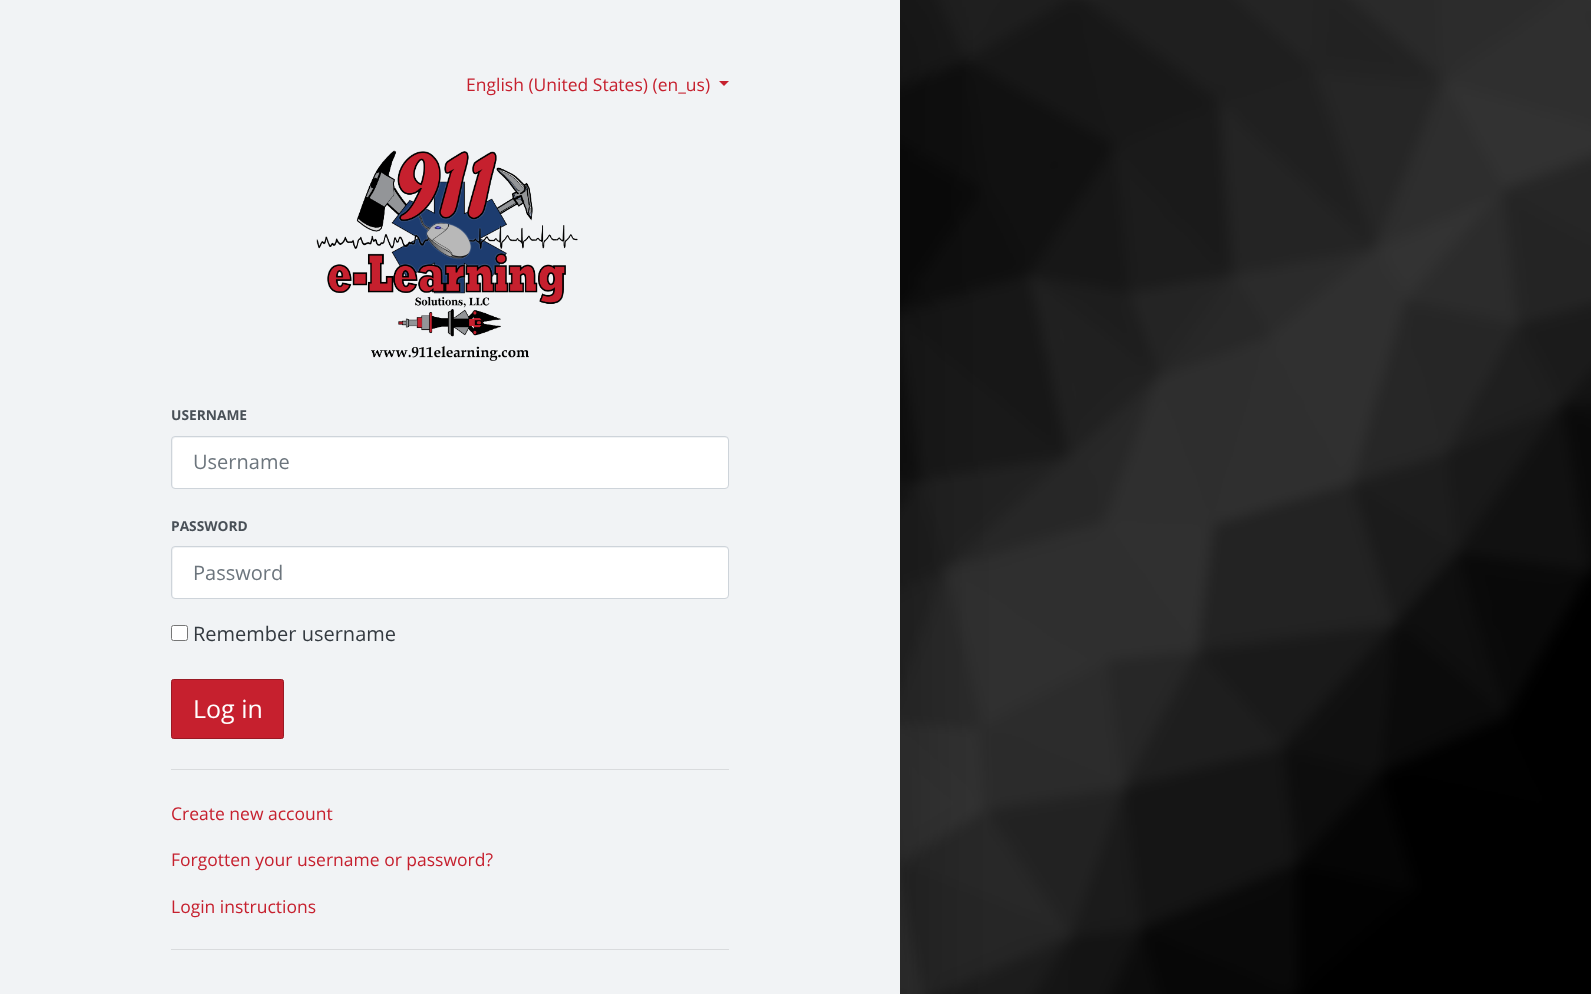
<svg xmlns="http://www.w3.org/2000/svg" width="1591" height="994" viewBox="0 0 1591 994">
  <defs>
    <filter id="blur1" x="-50%" y="-200%" width="200%" height="500%"><feGaussianBlur stdDeviation="46"/></filter>
  </defs>
  <rect width="100%" height="100%" fill="#ffffff"/>
  <image x="900" y="0" width="691" height="994" href="img1.png"/>
  <rect x="13" y="0" width="900" height="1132" fill="#000000" fill-opacity="0.25" filter="url(#blur1)"/>
  <rect x="0" y="0" width="900" height="994" fill="#f1f3f5"/>
  <text x="466" y="91" font-family="Open Sans" font-size="17.5" fill="#c6202e">English (United States) (en_us)</text>
  <path d="M719 81H729L724 86Z" fill="#c6202e"/>
  <image x="316" y="150" width="262" height="211" href="img2.png"/>
  <text x="171" y="420" font-family="Open Sans" font-size="13.75" font-weight="bold" fill="#495057">USERNAME</text>
  <rect x="173" y="438" width="555" height="50" rx="2.5" fill="#ffffff"/>
  <rect x="171.5" y="436.5" width="557" height="52" rx="3.5" fill="none" stroke="#ced4da"/>
  <text x="193" y="469" font-family="Open Sans" font-size="20" fill="#6c757d">Username</text>
  <text x="171" y="531" font-family="Open Sans" font-size="13.75" font-weight="bold" fill="#495057">PASSWORD</text>
  <rect x="173" y="548" width="555" height="50" rx="2.5" fill="#ffffff"/>
  <rect x="171.5" y="546.5" width="557" height="52" rx="3.5" fill="none" stroke="#ced4da"/>
  <text x="193" y="580" font-family="Open Sans" font-size="20" fill="#6c757d">Password</text>
  <rect x="171.5" y="625.5" width="16" height="15" rx="2" fill="#ffffff" stroke="#767676"/>
  <text x="193" y="641" font-family="Open Sans" font-size="20" fill="#343a40">Remember username</text>
  <rect x="171.5" y="679.5" width="112" height="59" rx="2" fill="#c6202e" stroke="#9a1924"/>
  <text x="193" y="718" font-family="Open Sans" font-size="25" fill="#ffffff">Log in</text>
  <rect x="171" y="769" width="558" height="1" fill="#d9dbdd"/>
  <text x="171" y="820" font-family="Open Sans" font-size="17.5" fill="#c6202e">Create new account</text>
  <text x="171" y="866" font-family="Open Sans" font-size="17.5" fill="#c6202e">Forgotten your username or password?</text>
  <text x="171" y="913" font-family="Open Sans" font-size="17.5" fill="#c6202e">Login instructions</text>
  <rect x="171" y="949" width="558" height="1" fill="#d9dbdd"/>
</svg>
